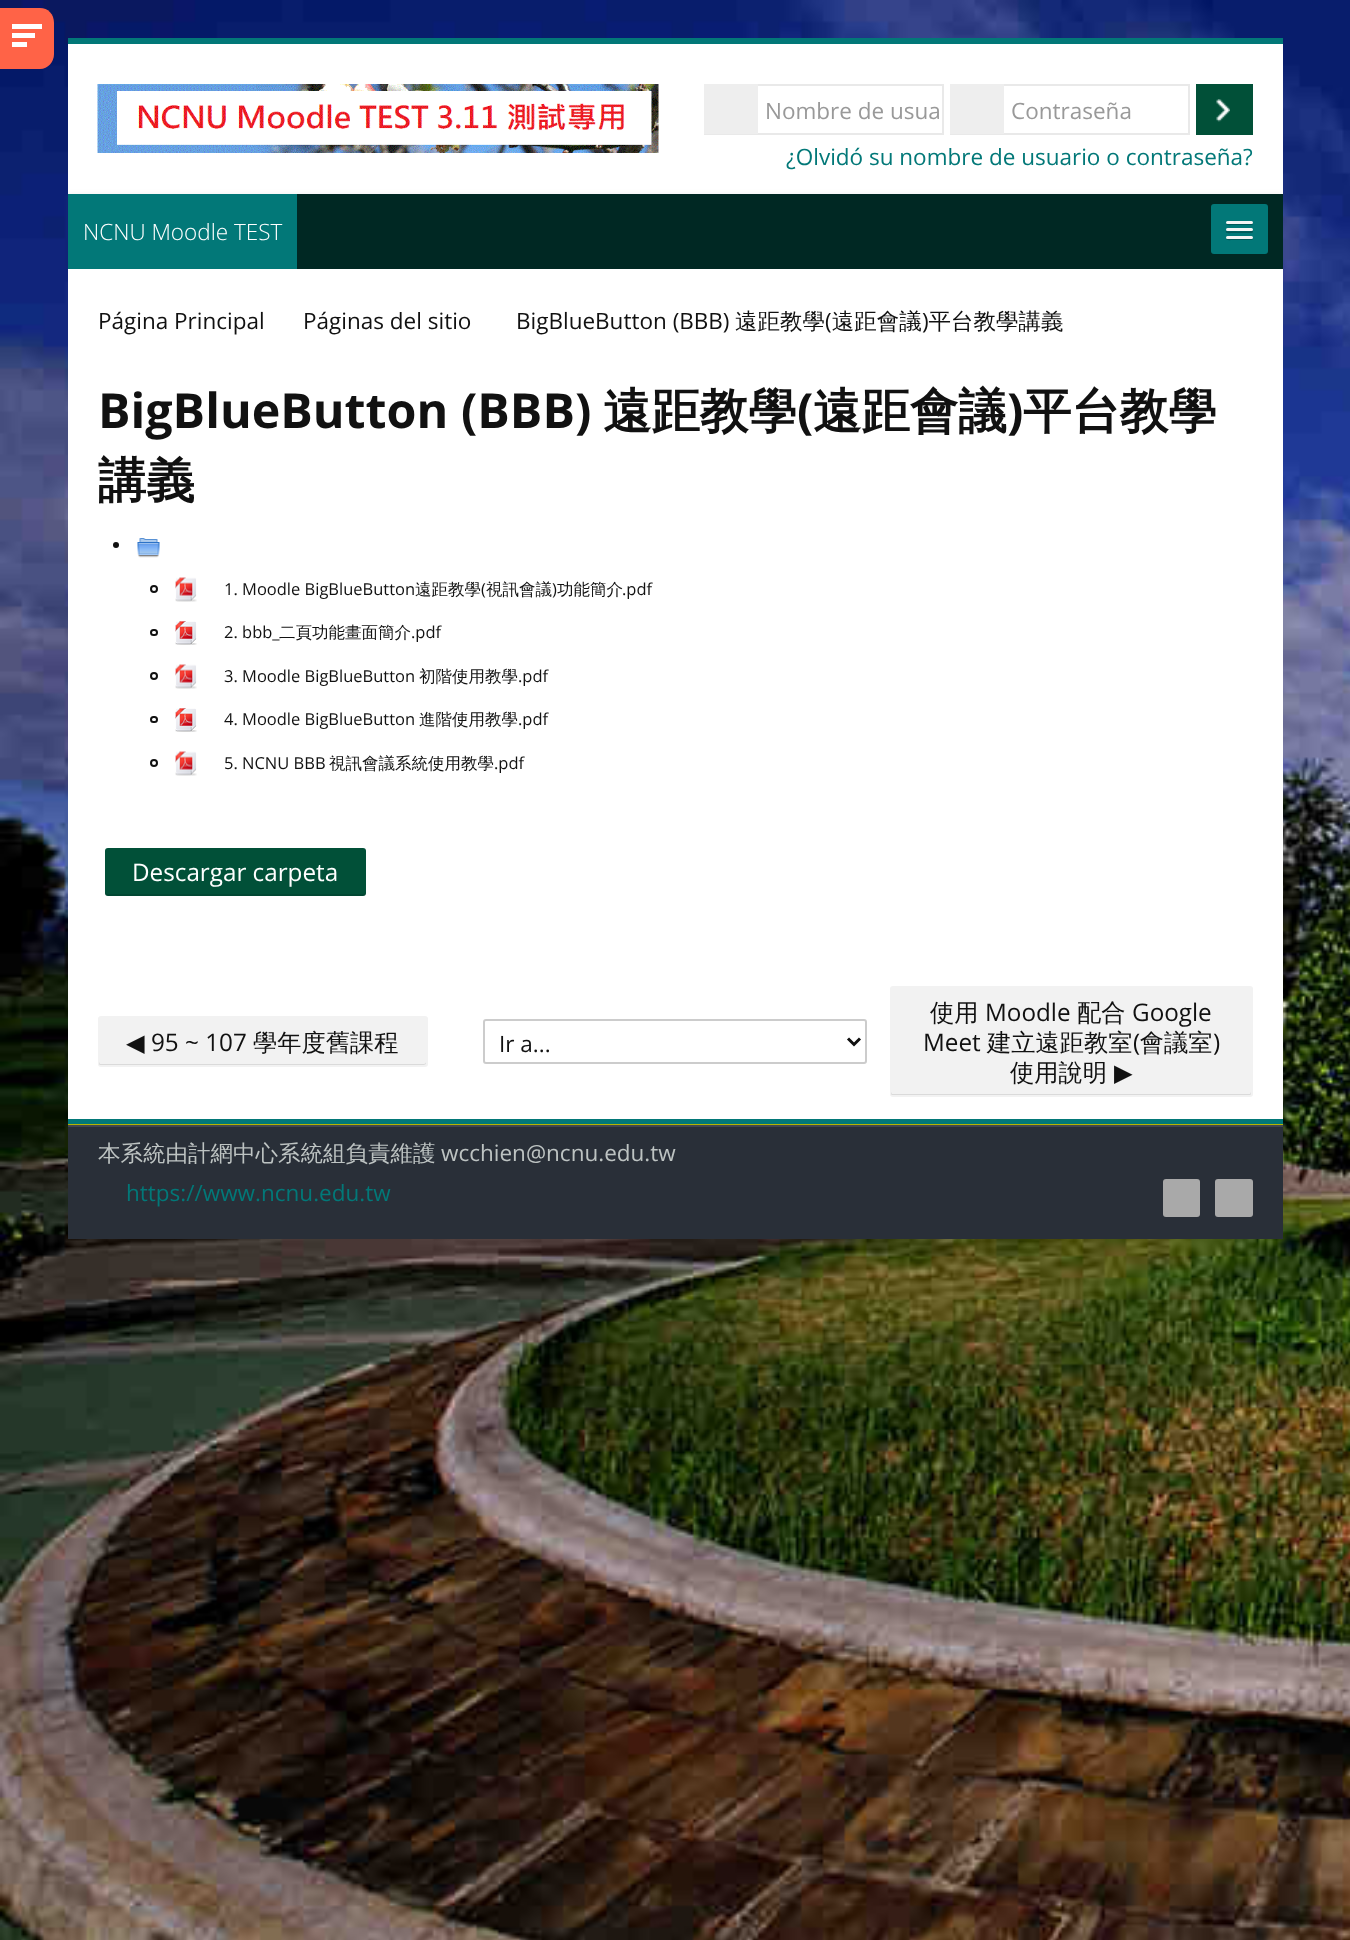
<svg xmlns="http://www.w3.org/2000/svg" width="1350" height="1940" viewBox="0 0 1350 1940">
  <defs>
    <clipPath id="clip1"><rect x="765" y="95" width="174" height="30"/></clipPath>
    <filter id="blur1" x="-50%" y="-200%" width="200%" height="500%"><feGaussianBlur stdDeviation="3"/></filter>
  </defs>
  <rect width="100%" height="100%" fill="#ffffff"/>
  <image x="0" y="0" width="1350" height="1940" href="img1.png"/>
  <path d="M0 8H40C48 8 54 14 54 23V54C54 62 48 69 40 69H0Z" fill="#ff6347"/>
  <rect x="12" y="24" width="30" height="5" fill="#ffffff"/>
  <rect x="12" y="33" width="23" height="5" fill="#ffffff"/>
  <rect x="12" y="42" width="15" height="5" fill="#ffffff"/>
  <rect x="68" y="38" width="1215" height="6" fill="#027878"/>
  <rect x="68" y="44" width="1215" height="150" fill="#ffffff"/>
  <image x="97" y="84" width="562" height="69" href="img2.png"/>
  <rect x="705" y="85" width="238" height="49" fill="none" stroke="#e9e9e9" stroke-width="2"/>
  <rect x="704" y="84" width="54" height="50" fill="#eeeeee"/>
  <g clip-path="url(#clip1)">
    <text x="765" y="119" font-family="Open Sans" font-size="22.5" fill="#999999">Nombre de usua</text>
  </g>
  <rect x="951" y="85" width="238" height="49" fill="none" stroke="#e9e9e9" stroke-width="2"/>
  <rect x="950" y="84" width="54" height="50" fill="#eeeeee"/>
  <text x="1011" y="119" font-family="Open Sans" font-size="22.5" fill="#999999">Contraseña</text>
  <rect x="1196" y="84" width="57" height="51" fill="#015038"/>
  <image x="1216" y="99" width="14" height="23" href="img3.png"/>
  <text x="786" y="165" font-family="Open Sans" font-size="22.5" fill="#027878">¿Olvidó su nombre de usuario o contraseña?</text>
  <rect x="68" y="195" width="1215" height="75" fill="#000000" fill-opacity="0.07" filter="url(#blur1)"/>
  <rect x="297" y="194" width="986" height="75" fill="#002823"/>
  <rect x="68" y="194" width="229" height="75" fill="#027878"/>
  <text x="83" y="240" font-family="Open Sans" font-size="22.5" font-weight="300" fill="#ffffff">NCNU Moodle TEST</text>
  <rect x="1211" y="204" width="57" height="50" rx="3" fill="#027878"/>
  <path d="M1226 223C1225.5 226 1231 225 1231.5 225H1251.5C1253 225 1253.5 223 1252.5 222.5L1251.5 223.5C1250 224 1226.5 223.5 1226 223Z" fill="#025a5a"/>
  <rect x="1226" y="221" width="27" height="3" rx="1.5" fill="#f5f5f5"/>
  <path d="M1226 231C1224.5 234 1231.5 233 1231.5 233H1252C1253 232.5 1253.5 231 1252.5 230L1251 231C1249 231.5 1227 231.5 1226 231Z" fill="#025a5a"/>
  <rect x="1226" y="228" width="27" height="3" rx="1.5" fill="#f5f5f5"/>
  <path d="M1226 238C1225.5 241 1231 240 1231.5 240H1251.5C1253 240 1253.5 238 1252.5 237.5L1251.5 238.5C1250 239 1226.5 238.5 1226 238Z" fill="#025a5a"/>
  <rect x="1226" y="236" width="27" height="3" rx="1.5" fill="#f5f5f5"/>
  <rect x="68" y="269" width="1215" height="850" fill="#ffffff"/>
  <text x="98" y="329" font-family="Open Sans" font-size="22.5" fill="#111111">Página Principal</text>
  <text x="303" y="329" font-family="Open Sans" font-size="22.5" fill="#111111">Páginas del sitio</text>
  <text x="516" y="329" font-family="Open Sans" font-size="22.5" fill="#111111">BigBlueButton (BBB)</text>
  <text x="735" y="329" font-family="WenQuanYi Zen Hei" font-size="22.5" font-weight="500" fill="#111111">遠距教學 遠距會議 平台教學講義</text>
  <text x="825" y="329" font-family="Open Sans" font-size="22.5" fill="#111111">(</text>
  <text x="922" y="329" font-family="Open Sans" font-size="22.5" fill="#111111">)</text>
  <text x="98" y="428" font-family="Open Sans" font-size="48.4" font-weight="bold" fill="#111111">BigBlueButton (BBB)</text>
  <text x="603" y="428" font-family="WenQuanYi Zen Hei" font-size="48.4" font-weight="bold" fill="#111111">遠距教學</text>
  <text x="797" y="428" font-family="Open Sans" font-size="48.4" font-weight="bold" fill="#111111">(</text>
  <text x="813" y="428" font-family="WenQuanYi Zen Hei" font-size="48.4" font-weight="bold" fill="#111111">遠距會議</text>
  <text x="1007" y="428" font-family="Open Sans" font-size="48.4" font-weight="bold" fill="#111111">)</text>
  <text x="1023" y="428" font-family="WenQuanYi Zen Hei" font-size="48.4" font-weight="bold" fill="#111111">平台教學</text>
  <text x="98" y="497" font-family="WenQuanYi Zen Hei" font-size="48.4" font-weight="bold" fill="#111111">講義</text>
  <circle cx="116" cy="545" r="3" fill="#111111"/>
  <image x="137" y="538" width="23" height="20" href="img4.png"/>
  <circle cx="154" cy="589" r="3" fill="none" stroke="#111111" stroke-width="2"/>
  <image x="175" y="577" width="22" height="25" href="img5.png"/>
  <text x="224" y="595" font-family="Open Sans" font-size="16.5" fill="#111111">1. Moodle BigBlueButton</text>
  <text x="415" y="595" font-family="WenQuanYi Zen Hei" font-size="16.5" font-weight="500" fill="#111111">遠距教學 視訊會議 功能簡介</text>
  <text x="622" y="595" font-family="Open Sans" font-size="16.5" fill="#111111">.pdf</text>
  <text x="481" y="595" font-family="Open Sans" font-size="16.5" fill="#111111">(</text>
  <text x="552" y="595" font-family="Open Sans" font-size="16.5" fill="#111111">)</text>
  <rect x="151" y="630" width="6" height="5" rx="2.5" fill="none" stroke="#111111" stroke-width="2"/>
  <image x="175" y="621" width="22" height="24" href="img6.png"/>
  <text x="224" y="638" font-family="Open Sans" font-size="16.5" fill="#111111">2. bbb_</text>
  <text x="279" y="638" font-family="WenQuanYi Zen Hei" font-size="16.5" font-weight="500" fill="#111111">二頁功能畫面簡介</text>
  <text x="411" y="638" font-family="Open Sans" font-size="16.5" fill="#111111">.pdf</text>
  <circle cx="154" cy="676" r="3" fill="none" stroke="#111111" stroke-width="2"/>
  <image x="175" y="664" width="22" height="25" href="img5.png"/>
  <text x="224" y="682" font-family="Open Sans" font-size="16.5" fill="#111111">3. Moodle BigBlueButton</text>
  <text x="419" y="682" font-family="WenQuanYi Zen Hei" font-size="16.5" font-weight="500" fill="#111111">初階使用教學</text>
  <text x="518" y="682" font-family="Open Sans" font-size="16.5" fill="#111111">.pdf</text>
  <rect x="151" y="717" width="6" height="5" rx="2.5" fill="none" stroke="#111111" stroke-width="2"/>
  <image x="175" y="708" width="22" height="24" href="img6.png"/>
  <text x="224" y="725" font-family="Open Sans" font-size="16.5" fill="#111111">4. Moodle BigBlueButton</text>
  <text x="419" y="725" font-family="WenQuanYi Zen Hei" font-size="16.5" font-weight="500" fill="#111111">進階使用教學</text>
  <text x="518" y="725" font-family="Open Sans" font-size="16.5" fill="#111111">.pdf</text>
  <circle cx="154" cy="763" r="3" fill="none" stroke="#111111" stroke-width="2"/>
  <image x="175" y="751" width="22" height="25" href="img5.png"/>
  <text x="224" y="769" font-family="Open Sans" font-size="16.5" fill="#111111">5. NCNU BBB</text>
  <text x="329" y="769" font-family="WenQuanYi Zen Hei" font-size="16.5" font-weight="500" fill="#111111">視訊會議系統使用教學</text>
  <text x="494" y="769" font-family="Open Sans" font-size="16.5" fill="#111111">.pdf</text>
  <rect x="105" y="848" width="261" height="48" rx="3" fill="#015038"/>
  <path d="M105 891V893C105 895 106 896 108 896H363C365 896 366 895 366 893V891C366 893 365 894 363 894H107L105 893Z" fill="#000000" fill-opacity="0.1"/>
  <text x="132" y="881" font-family="Open Sans" font-size="24.25" fill="#ffffff">Descargar carpeta</text>
  <rect x="98" y="1016" width="330" height="51" rx="3" fill="#f2f2f2"/>
  <path d="M99 1062C99 1063 99 1065 100 1065H424L426 1064V1062C426 1063 425 1064 424 1064H100Z" fill="#dadada"/>
  <text x="126" y="1051" font-family="DejaVu Sans" font-size="24.25" fill="#111111">◀︎</text>
  <text x="151" y="1051" font-family="Open Sans" font-size="24.25" fill="#111111">95 ~ 107</text>
  <text x="253" y="1051" font-family="WenQuanYi Zen Hei" font-size="24.25" font-weight="500" fill="#111111">學年度舊課程</text>
  <rect x="484" y="1020" width="382" height="43" rx="2" fill="none" stroke="#cccccc" stroke-width="2"/>
  <path d="M848 1038.5L854 1044.5L860 1038.5" fill="none" stroke="#111111" stroke-width="3"/>
  <text x="499" y="1052" font-family="Open Sans" font-size="22.5" fill="#111111">Ir a...</text>
  <rect x="890" y="986" width="363" height="111" rx="3" fill="#f2f2f2"/>
  <path d="M891 1092C891 1093 891 1095 892 1095H1250C1251 1095 1251 1093 1251 1092L1250 1094H892Z" fill="#dadada"/>
  <text x="930" y="1021" font-family="WenQuanYi Zen Hei" font-size="24.25" font-weight="500" fill="#111111">使用</text>
  <text x="985" y="1021" font-family="Open Sans" font-size="24.25" fill="#111111">Moodle</text>
  <text x="1077" y="1021" font-family="WenQuanYi Zen Hei" font-size="24.25" font-weight="500" fill="#111111">配合</text>
  <text x="1132" y="1021" font-family="Open Sans" font-size="24.25" fill="#111111">Google</text>
  <text x="923" y="1051" font-family="Open Sans" font-size="24.25" fill="#111111">Meet</text>
  <text x="987" y="1051" font-family="WenQuanYi Zen Hei" font-size="24.25" font-weight="500" fill="#111111">建立遠距教室 會議室</text>
  <text x="1133" y="1051" font-family="Open Sans" font-size="24.25" fill="#111111">(</text>
  <text x="1213" y="1051" font-family="Open Sans" font-size="24.25" fill="#111111">)</text>
  <text x="1010" y="1081" font-family="WenQuanYi Zen Hei" font-size="24.25" font-weight="500" fill="#111111">使用說明</text>
  <text x="1114" y="1081" font-family="DejaVu Sans" font-size="24.25" fill="#111111">▶︎</text>
  <rect x="68" y="1124" width="1215" height="1" fill="#b7b400"/>
  <rect x="68" y="1119" width="1215" height="5" fill="#027878"/>
  <rect x="68" y="1127" width="1215" height="112" fill="#292f38"/>
  <rect x="68" y="1125" width="1215" height="2" fill="#41464e"/>
  <text x="98" y="1161" font-family="WenQuanYi Zen Hei" font-size="22.5" font-weight="500" fill="#bdc3c2">本系統由計網中心系統組負責維護</text>
  <text x="441" y="1161" font-family="Open Sans" font-size="22.5" fill="#bdc3c2">wcchien@ncnu.edu.tw</text>
  <text x="126" y="1201" font-family="Open Sans" font-size="22.5" fill="#027878">https://www.ncnu.edu.tw</text>
  <rect x="1163" y="1179" width="37" height="38" rx="3" fill="#a9a9a9"/>
  <rect x="1215" y="1179" width="38" height="38" rx="3" fill="#a9a9a9"/>
</svg>
